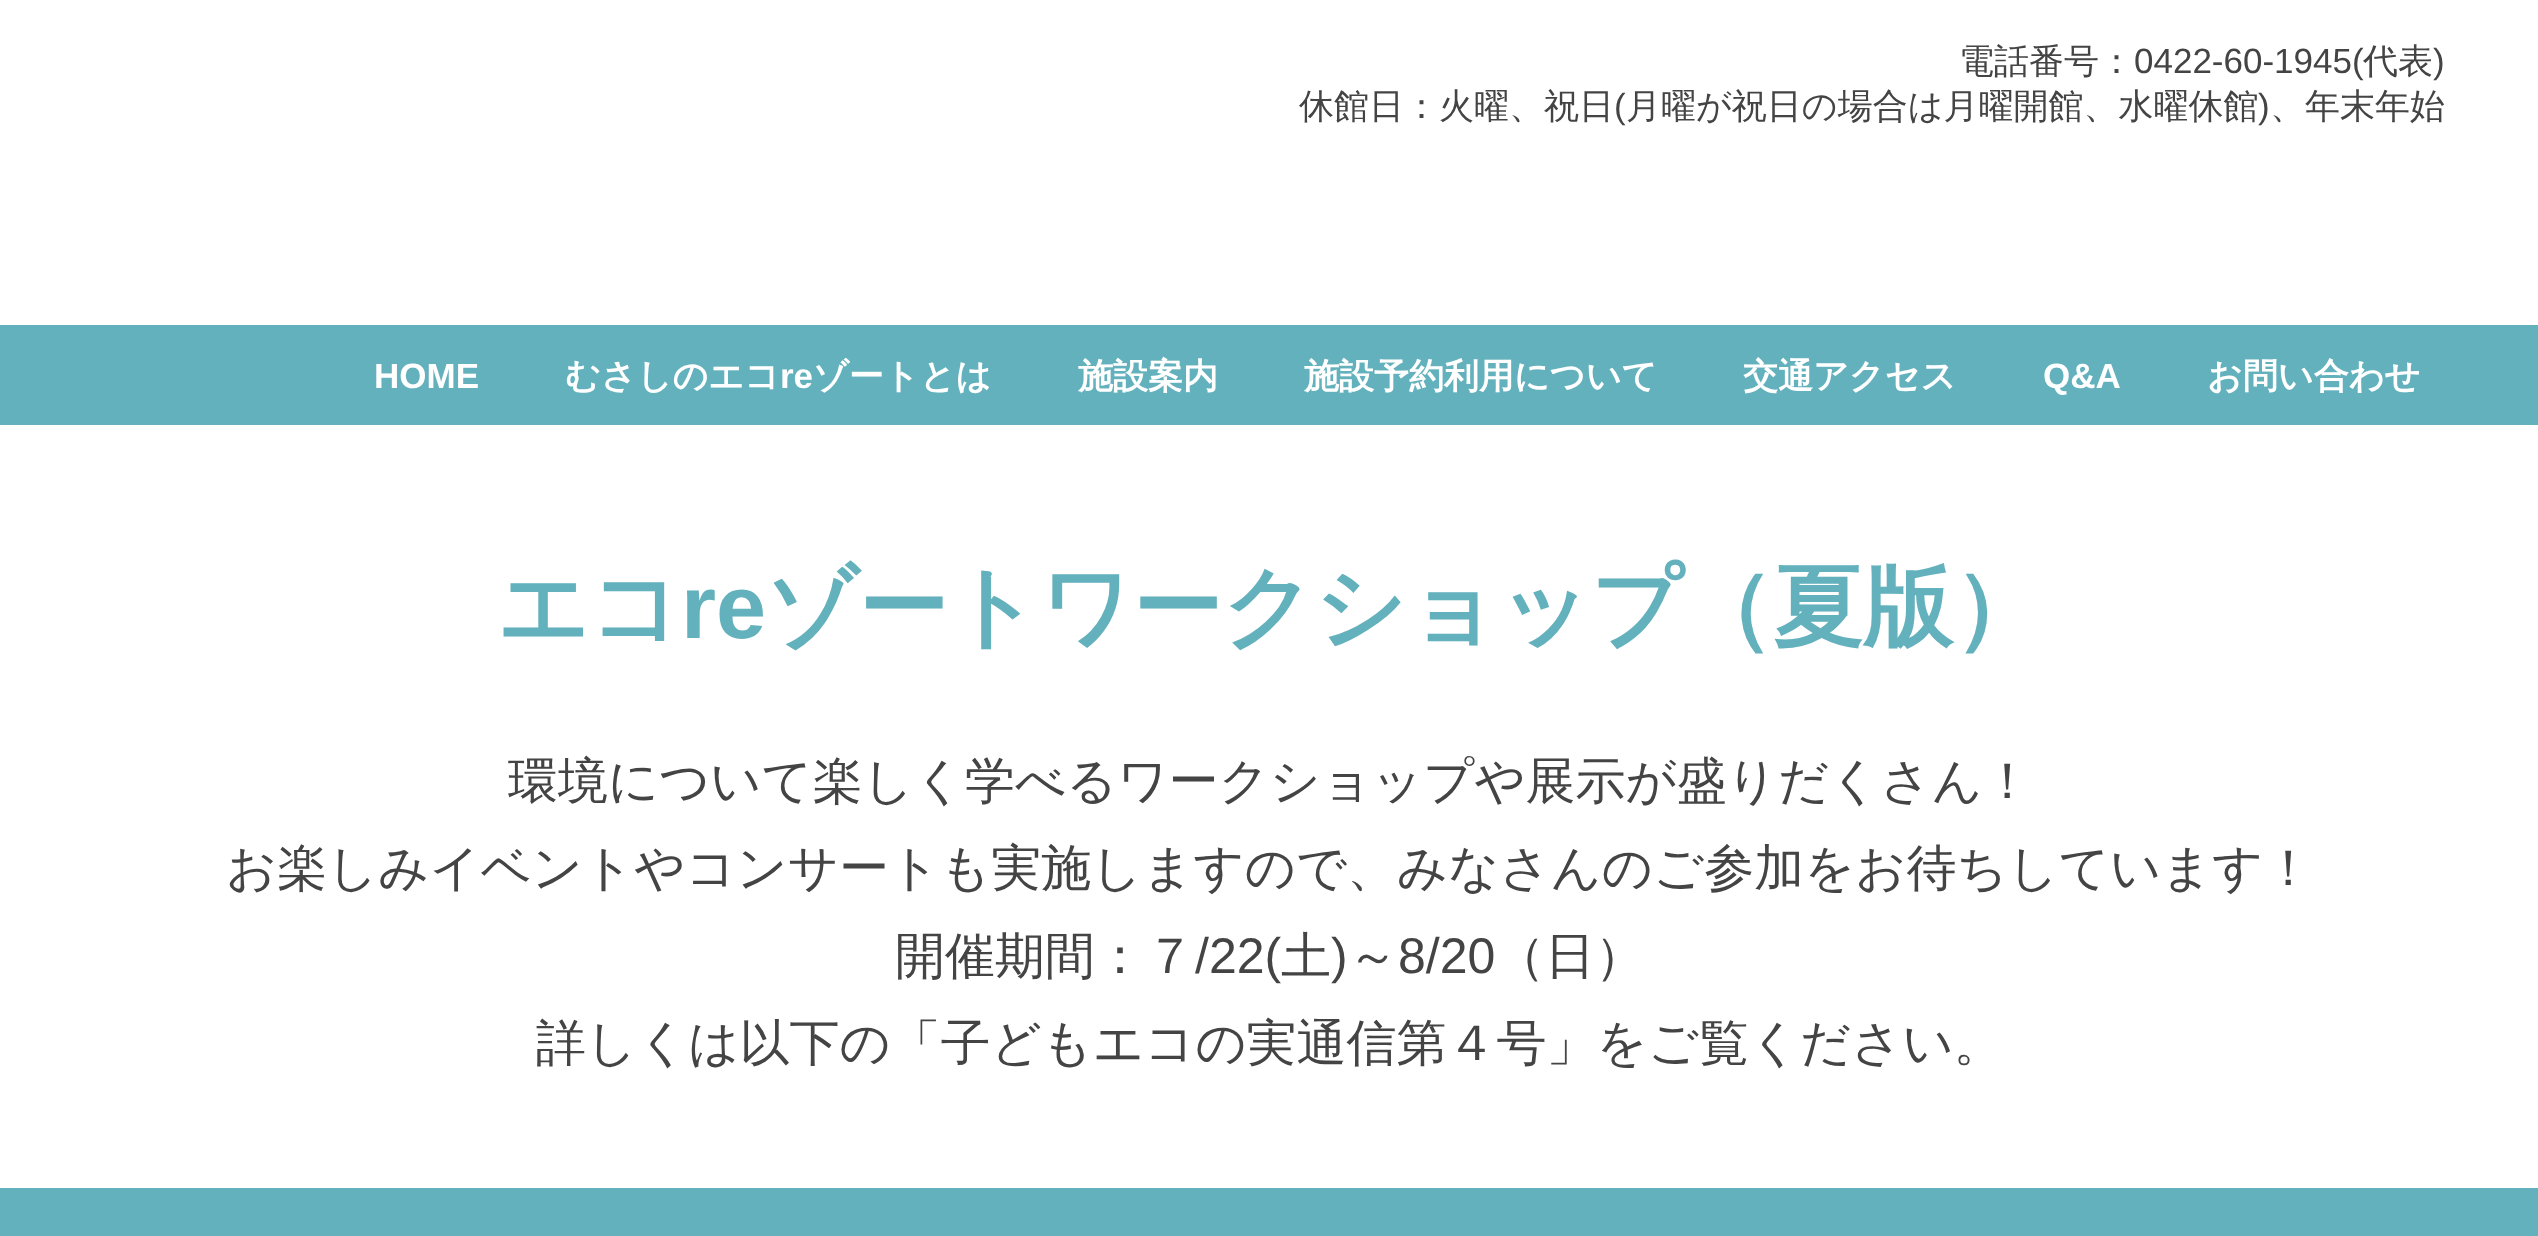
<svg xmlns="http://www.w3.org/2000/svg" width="2538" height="1236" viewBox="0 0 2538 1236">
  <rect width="100%" height="100%" fill="#ffffff"/>
  <text x="1959" y="73" font-family="WenQuanYi Zen Hei" font-size="35" font-weight="500" fill="#444444">電話番号：</text>
  <text x="2134" y="73" font-family="Liberation Sans" font-size="35" fill="#444444">0422-60-1945(</text>
  <text x="2363" y="73" font-family="WenQuanYi Zen Hei" font-size="35" font-weight="500" fill="#444444">代表</text>
  <text x="2433" y="73" font-family="Liberation Sans" font-size="35" fill="#444444">)</text>
  <text x="1299" y="118" font-family="WenQuanYi Zen Hei" font-size="35" font-weight="500" fill="#444444">休館日：火曜、祝日</text>
  <text x="1614" y="118" font-family="Liberation Sans" font-size="35" fill="#444444">(</text>
  <text x="1626" y="118" font-family="WenQuanYi Zen Hei" font-size="35" font-weight="500" fill="#444444">月曜が祝日の場合は月曜開館、水曜休館</text>
  <text x="2258" y="118" font-family="Liberation Sans" font-size="35" fill="#444444">)</text>
  <text x="2270" y="118" font-family="WenQuanYi Zen Hei" font-size="35" font-weight="500" fill="#444444">、年末年始</text>
  <rect x="0" y="325" width="2538" height="100" fill="#63b1bc"/>
  <text x="374" y="388" font-family="Liberation Sans" font-size="35" font-weight="bold" fill="#ffffff">HOME</text>
  <text x="565" y="388" font-family="WenQuanYi Zen Hei" font-size="35" font-weight="bold" fill="#ffffff">むさしのエコ</text>
  <text x="780" y="388" font-family="Liberation Sans" font-size="35" font-weight="bold" fill="#ffffff">re</text>
  <text x="813" y="388" font-family="WenQuanYi Zen Hei" font-size="35" font-weight="bold" fill="#ffffff">ゾートとは</text>
  <text x="1078" y="388" font-family="WenQuanYi Zen Hei" font-size="35" font-weight="bold" fill="#ffffff">施設案内</text>
  <text x="1304" y="388" font-family="WenQuanYi Zen Hei" font-size="35" font-weight="bold" fill="#ffffff">施設予約利用について</text>
  <text x="1743" y="388" font-family="WenQuanYi Zen Hei" font-size="35" font-weight="bold" fill="#ffffff">交通アクセス</text>
  <text x="2043" y="388" font-family="Liberation Sans" font-size="35" font-weight="bold" fill="#ffffff">Q&amp;A</text>
  <text x="2207" y="388" font-family="WenQuanYi Zen Hei" font-size="35" font-weight="bold" fill="#ffffff">お問い合わせ</text>
  <text x="497" y="638" font-family="WenQuanYi Zen Hei" font-size="90" font-weight="bold" fill="#63b1bc">エコ</text>
  <text x="681" y="638" font-family="Liberation Sans" font-size="90" font-weight="bold" fill="#63b1bc">re</text>
  <text x="766" y="638" font-family="WenQuanYi Zen Hei" font-size="90" font-weight="bold" fill="#63b1bc">ゾートワークショップ（夏版）</text>
  <text x="508" y="798" font-family="WenQuanYi Zen Hei" font-size="50" font-weight="500" fill="#444444">環境について楽しく学べるワークショップや展示が盛りだくさん！</text>
  <text x="226" y="885" font-family="WenQuanYi Zen Hei" font-size="50" font-weight="500" fill="#444444">お楽しみイベントやコンサートも実施しますので、みなさんのご参加をお待ちしています！</text>
  <text x="895" y="973" font-family="WenQuanYi Zen Hei" font-size="50" font-weight="500" fill="#444444">開催期間：７</text>
  <text x="1195" y="973" font-family="Liberation Sans" font-size="50" fill="#444444">/22(</text>
  <text x="1281" y="973" font-family="WenQuanYi Zen Hei" font-size="50" font-weight="500" fill="#444444">土</text>
  <text x="1331" y="973" font-family="Liberation Sans" font-size="50" fill="#444444">)</text>
  <text x="1348" y="973" font-family="WenQuanYi Zen Hei" font-size="50" font-weight="500" fill="#444444">～</text>
  <text x="1398" y="973" font-family="Liberation Sans" font-size="50" fill="#444444">8/20</text>
  <text x="1495" y="973" font-family="WenQuanYi Zen Hei" font-size="50" font-weight="500" fill="#444444">（日）</text>
  <text x="536" y="1060" font-family="WenQuanYi Zen Hei" font-size="50" font-weight="500" fill="#444444">詳しくは以下の「子どもエコの実通信第４号」をご覧ください。</text>
  <rect x="0" y="1188" width="2538" height="48" fill="#63b1bc"/>
</svg>
